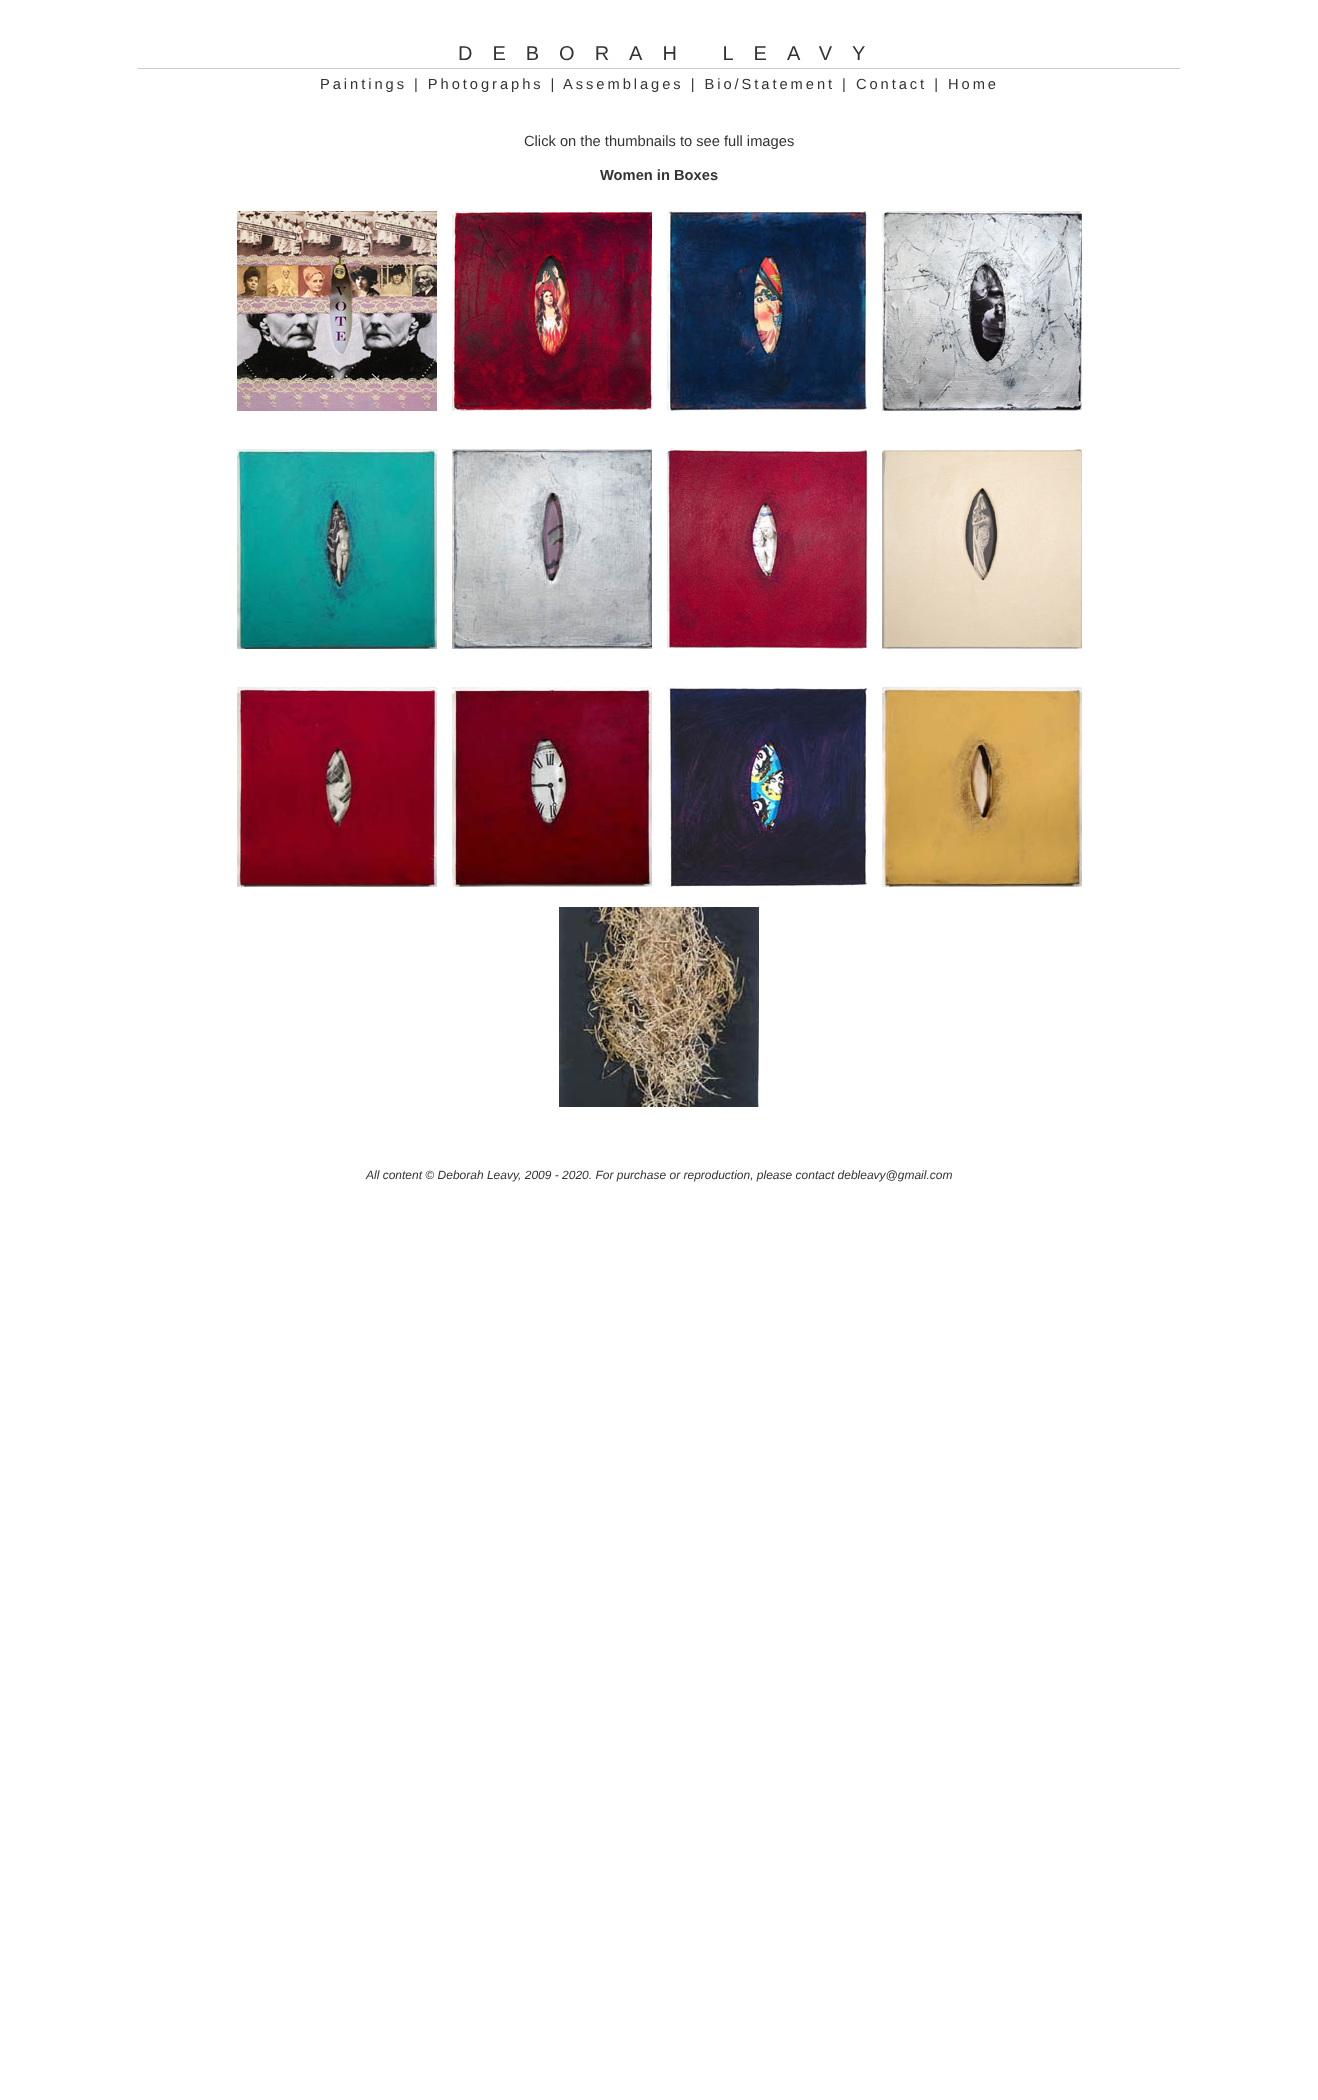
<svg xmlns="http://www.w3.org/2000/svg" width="1318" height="2100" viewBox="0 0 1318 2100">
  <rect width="100%" height="100%" fill="#ffffff"/>
  <text x="458" y="60" font-family="Liberation Sans" font-size="20" letter-spacing="20" fill="#333333">DEBORAH LEAVY</text>
  <rect x="138" y="68" width="1042" height="1" fill="#cccccc"/>
  <text x="320" y="89" font-family="Liberation Sans" font-size="14.7" letter-spacing="2.95" fill="#333333">Paintings | Photographs |</text>
  <text x="563" y="89" font-family="Liberation Sans" font-size="14.7" letter-spacing="2.95" fill="#333333">Assemblages | Bio/Statement | Contact | Home</text>
  <text x="524" y="146" font-family="Liberation Sans" font-size="14.7" fill="#333333">Click on the thumbnails to see full images</text>
  <text x="600" y="180" font-family="Liberation Sans" font-size="14.7" font-weight="bold" fill="#333333">Women in Boxes</text>
  <image x="237" y="211" width="200" height="200" href="img1.png"/>
  <image x="452" y="211" width="200" height="200" href="img2.png"/>
  <image x="667" y="211" width="200" height="200" href="img3.png"/>
  <image x="882" y="211" width="200" height="200" href="img4.png"/>
  <image x="237" y="449" width="200" height="200" href="img5.png"/>
  <image x="452" y="449" width="200" height="200" href="img6.png"/>
  <image x="667" y="449" width="200" height="200" href="img7.png"/>
  <image x="882" y="449" width="200" height="200" href="img8.png"/>
  <image x="237" y="687" width="200" height="200" href="img9.png"/>
  <image x="452" y="687" width="200" height="200" href="img10.png"/>
  <image x="667" y="687" width="200" height="200" href="img11.png"/>
  <image x="882" y="687" width="200" height="200" href="img12.png"/>
  <image x="559" y="907" width="200" height="200" href="img13.png"/>
  <text x="366" y="1179" font-family="Liberation Sans" font-size="12" font-style="italic" fill="#333333">All content © Deborah Leavy, 2009 - 2020. For purchase or reproduction, please contact debleavy@gmail.com</text>
</svg>
